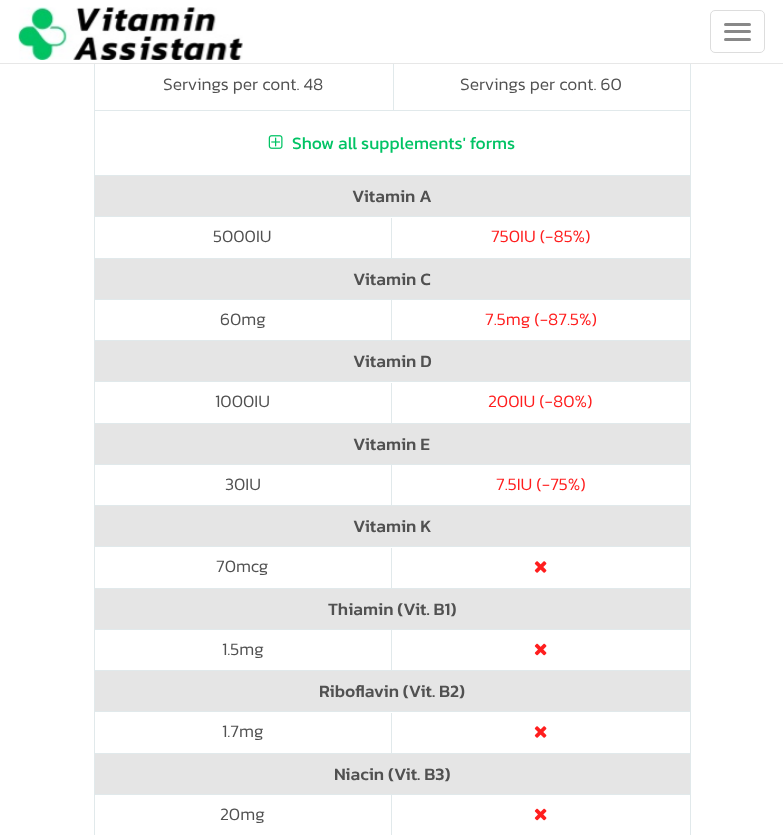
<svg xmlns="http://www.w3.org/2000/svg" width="783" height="835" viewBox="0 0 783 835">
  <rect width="100%" height="100%" fill="#ffffff"/>
  <rect x="94.5" y="-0.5" width="596" height="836" fill="none" stroke="#e1e9eb"/>
  <rect x="94" y="0" width="597" height="63" fill="#ffffff"/>
  <rect x="0" y="63" width="783" height="1" fill="#e7e7e7"/>
  <image x="18" y="7" width="225" height="53" href="img1.png"/>
  <rect x="710.5" y="10.5" width="54" height="42" rx="4.5" fill="none" stroke="#dddddd"/>
  <rect x="724" y="23" width="27" height="3" rx="1.5" fill="#888888"/>
  <rect x="724" y="30" width="27" height="3" rx="1.5" fill="#888888"/>
  <rect x="724" y="38" width="27" height="3" rx="1.5" fill="#888888"/>
  <rect x="95" y="110" width="595" height="1" fill="#e1e9eb"/>
  <text x="163" y="90" font-family="Kanit" font-size="17.5" font-weight="300" fill="#515151">Servings per cont. 48</text>
  <rect x="393" y="64" width="1" height="47" fill="#e1e9eb"/>
  <text x="460" y="90" font-family="Kanit" font-size="17.5" font-weight="300" fill="#515151">Servings per cont. 60</text>
  <rect x="95" y="175" width="595" height="1" fill="#e1e9eb"/>
  <image x="268" y="135" width="15" height="14" href="img2.png"/>
  <text x="292" y="149" font-family="Kanit" font-size="17.5" fill="#00c364">Show all supplements' forms</text>
  <rect x="95" y="176" width="595" height="40" fill="#e5e5e5"/>
  <rect x="95" y="216" width="595" height="1" fill="#e1e9eb"/>
  <text x="352" y="202" font-family="Kanit" font-size="17.5" font-weight="500" fill="#515151">Vitamin A</text>
  <rect x="391" y="218" width="1" height="41" fill="#e1e9eb"/>
  <rect x="95" y="258" width="595" height="1" fill="#e1e9eb"/>
  <text x="213" y="242" font-family="Kanit" font-size="17.5" font-weight="300" fill="#515151">5000IU</text>
  <text x="491" y="242" font-family="Kanit" font-size="17.5" font-weight="300" fill="#ff1e1e">750IU (-85%)</text>
  <rect x="95" y="259" width="595" height="40" fill="#e5e5e5"/>
  <rect x="95" y="299" width="595" height="1" fill="#e1e9eb"/>
  <text x="353" y="285" font-family="Kanit" font-size="17.5" font-weight="500" fill="#515151">Vitamin C</text>
  <rect x="391" y="300" width="1" height="41" fill="#e1e9eb"/>
  <rect x="95" y="340" width="595" height="1" fill="#e1e9eb"/>
  <text x="220" y="325" font-family="Kanit" font-size="17.5" font-weight="300" fill="#515151">60mg</text>
  <text x="485" y="325" font-family="Kanit" font-size="17.5" font-weight="300" fill="#ff1e1e">7.5mg (-87.5%)</text>
  <rect x="95" y="341" width="595" height="40" fill="#e5e5e5"/>
  <rect x="95" y="381" width="595" height="1" fill="#e1e9eb"/>
  <text x="353" y="367" font-family="Kanit" font-size="17.5" font-weight="500" fill="#515151">Vitamin D</text>
  <rect x="391" y="383" width="1" height="41" fill="#e1e9eb"/>
  <rect x="95" y="423" width="595" height="1" fill="#e1e9eb"/>
  <text x="215" y="407" font-family="Kanit" font-size="17.5" font-weight="300" fill="#515151">1000IU</text>
  <text x="488" y="407" font-family="Kanit" font-size="17.5" font-weight="300" fill="#ff1e1e">200IU (-80%)</text>
  <rect x="95" y="424" width="595" height="40" fill="#e5e5e5"/>
  <rect x="95" y="464" width="595" height="1" fill="#e1e9eb"/>
  <text x="353" y="450" font-family="Kanit" font-size="17.5" font-weight="500" fill="#515151">Vitamin E</text>
  <rect x="391" y="465" width="1" height="41" fill="#e1e9eb"/>
  <rect x="95" y="505" width="595" height="1" fill="#e1e9eb"/>
  <text x="225" y="490" font-family="Kanit" font-size="17.5" font-weight="300" fill="#515151">30IU</text>
  <text x="496" y="490" font-family="Kanit" font-size="17.5" font-weight="300" fill="#ff1e1e">7.5IU (-75%)</text>
  <rect x="95" y="506" width="595" height="40" fill="#e5e5e5"/>
  <rect x="95" y="546" width="595" height="1" fill="#e1e9eb"/>
  <text x="353" y="532" font-family="Kanit" font-size="17.5" font-weight="500" fill="#515151">Vitamin K</text>
  <rect x="391" y="548" width="1" height="41" fill="#e1e9eb"/>
  <rect x="95" y="588" width="595" height="1" fill="#e1e9eb"/>
  <text x="216" y="572" font-family="Kanit" font-size="17.5" font-weight="300" fill="#515151">70mcg</text>
  <image x="534" y="561" width="13" height="12" href="img3.png"/>
  <rect x="95" y="589" width="595" height="40" fill="#e5e5e5"/>
  <rect x="95" y="629" width="595" height="1" fill="#e1e9eb"/>
  <text x="328" y="615" font-family="Kanit" font-size="17.5" font-weight="500" fill="#515151">Thiamin (Vit. B1)</text>
  <rect x="391" y="630" width="1" height="41" fill="#e1e9eb"/>
  <rect x="95" y="670" width="595" height="1" fill="#e1e9eb"/>
  <text x="222" y="655" font-family="Kanit" font-size="17.5" font-weight="300" fill="#515151">1.5mg</text>
  <image x="534" y="643" width="13" height="13" href="img4.png"/>
  <rect x="95" y="671" width="595" height="40" fill="#e5e5e5"/>
  <rect x="95" y="711" width="595" height="1" fill="#e1e9eb"/>
  <text x="319" y="697" font-family="Kanit" font-size="17.5" font-weight="500" fill="#515151">Riboflavin (Vit. B2)</text>
  <rect x="391" y="713" width="1" height="41" fill="#e1e9eb"/>
  <rect x="95" y="753" width="595" height="1" fill="#e1e9eb"/>
  <text x="222" y="737" font-family="Kanit" font-size="17.5" font-weight="300" fill="#515151">1.7mg</text>
  <image x="534" y="726" width="13" height="12" href="img3.png"/>
  <rect x="95" y="754" width="595" height="40" fill="#e5e5e5"/>
  <rect x="95" y="794" width="595" height="1" fill="#e1e9eb"/>
  <text x="334" y="780" font-family="Kanit" font-size="17.5" font-weight="500" fill="#515151">Niacin (Vit. B3)</text>
  <rect x="391" y="795" width="1" height="40" fill="#e1e9eb"/>
  <text x="220" y="820" font-family="Kanit" font-size="17.5" font-weight="300" fill="#515151">20mg</text>
  <image x="534" y="808" width="13" height="13" href="img4.png"/>
</svg>
